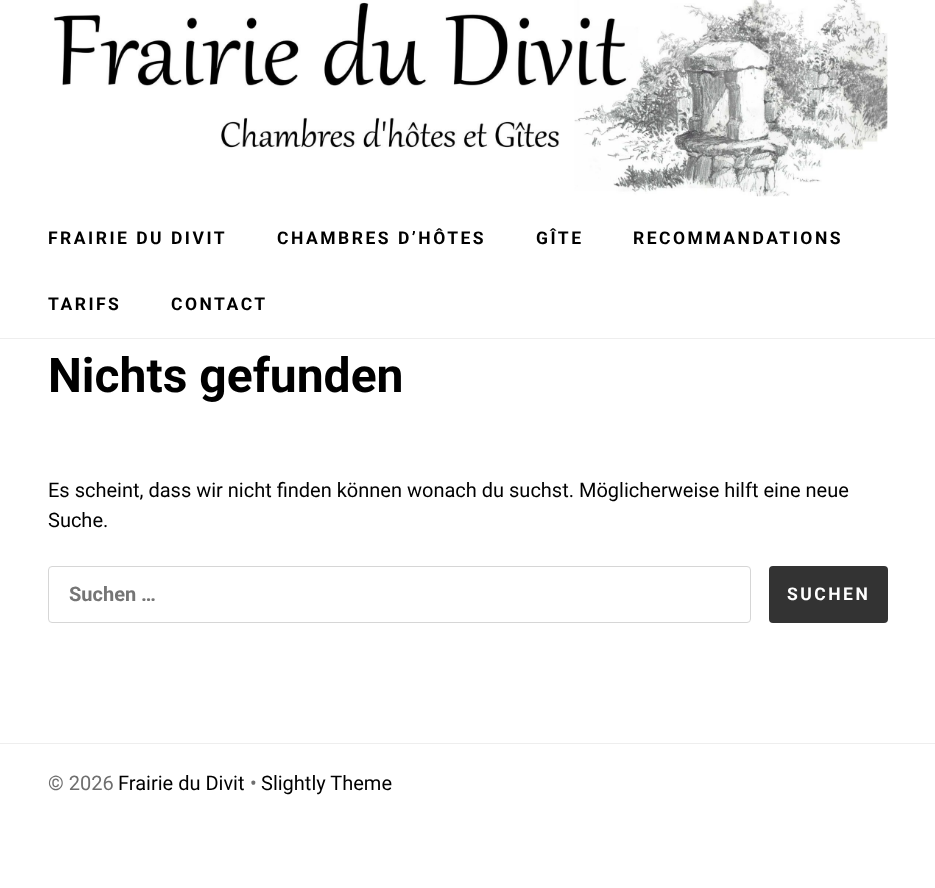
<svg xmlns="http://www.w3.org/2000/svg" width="935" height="888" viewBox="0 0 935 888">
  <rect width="100%" height="100%" fill="#ffffff"/>
  <rect x="0" y="338" width="935" height="1" fill="#eeeeee"/>
  <image x="53" y="0" width="835" height="197" href="img1.png"/>
  <text x="48" y="244" font-family="Roboto" font-size="17.5" font-weight="bold" letter-spacing="2.5" fill="#000000">FRAIRIE DU DIVIT</text>
  <text x="277" y="244" font-family="Roboto" font-size="17.5" font-weight="bold" letter-spacing="2.5" fill="#000000">CHAMBRES D’HÔTES</text>
  <text x="536" y="244" font-family="Roboto" font-size="17.5" font-weight="bold" letter-spacing="2.5" fill="#000000">GÎTE</text>
  <text x="633" y="244" font-family="Roboto" font-size="17.5" font-weight="bold" letter-spacing="2.5" fill="#000000">RECOMMANDATIONS</text>
  <text x="48" y="310" font-family="Roboto" font-size="17.5" font-weight="bold" letter-spacing="2.5" fill="#000000">TARIFS</text>
  <text x="171" y="310" font-family="Roboto" font-size="17.5" font-weight="bold" letter-spacing="2.5" fill="#000000">CONTACT</text>
  <text x="48" y="392" font-family="Roboto" font-size="48" font-weight="bold" fill="#000000">Nichts gefunden</text>
  <text x="48" y="497" font-family="Roboto" font-size="20" fill="#000000">Es scheint, dass wir nicht finden können wonach du suchst. Möglicherweise hilft eine neue</text>
  <text x="48" y="527" font-family="Roboto" font-size="20" fill="#000000">Suche.</text>
  <rect x="48.5" y="566.5" width="702" height="56" rx="3.5" fill="none" stroke="#d6d6d6"/>
  <text x="69" y="601" font-family="Roboto" font-size="20" font-weight="bold" fill="#757575">Suchen …</text>
  <rect x="769" y="566" width="119" height="57" rx="4" fill="#333333"/>
  <text x="787" y="600" font-family="Roboto" font-size="17.5" font-weight="bold" letter-spacing="2.5" fill="#ffffff">SUCHEN</text>
  <rect x="0" y="743" width="935" height="1" fill="#eeeeee"/>
  <text x="48" y="790" font-family="Roboto" font-size="20" fill="#6f6f6f">© 2026</text>
  <text x="118" y="790" font-family="Roboto" font-size="20" fill="#000000">Frairie du Divit</text>
  <text x="250" y="790" font-family="Roboto" font-size="20" fill="#6f6f6f">•</text>
  <text x="261" y="790" font-family="Roboto" font-size="20" fill="#000000">Slightly Theme</text>
</svg>
